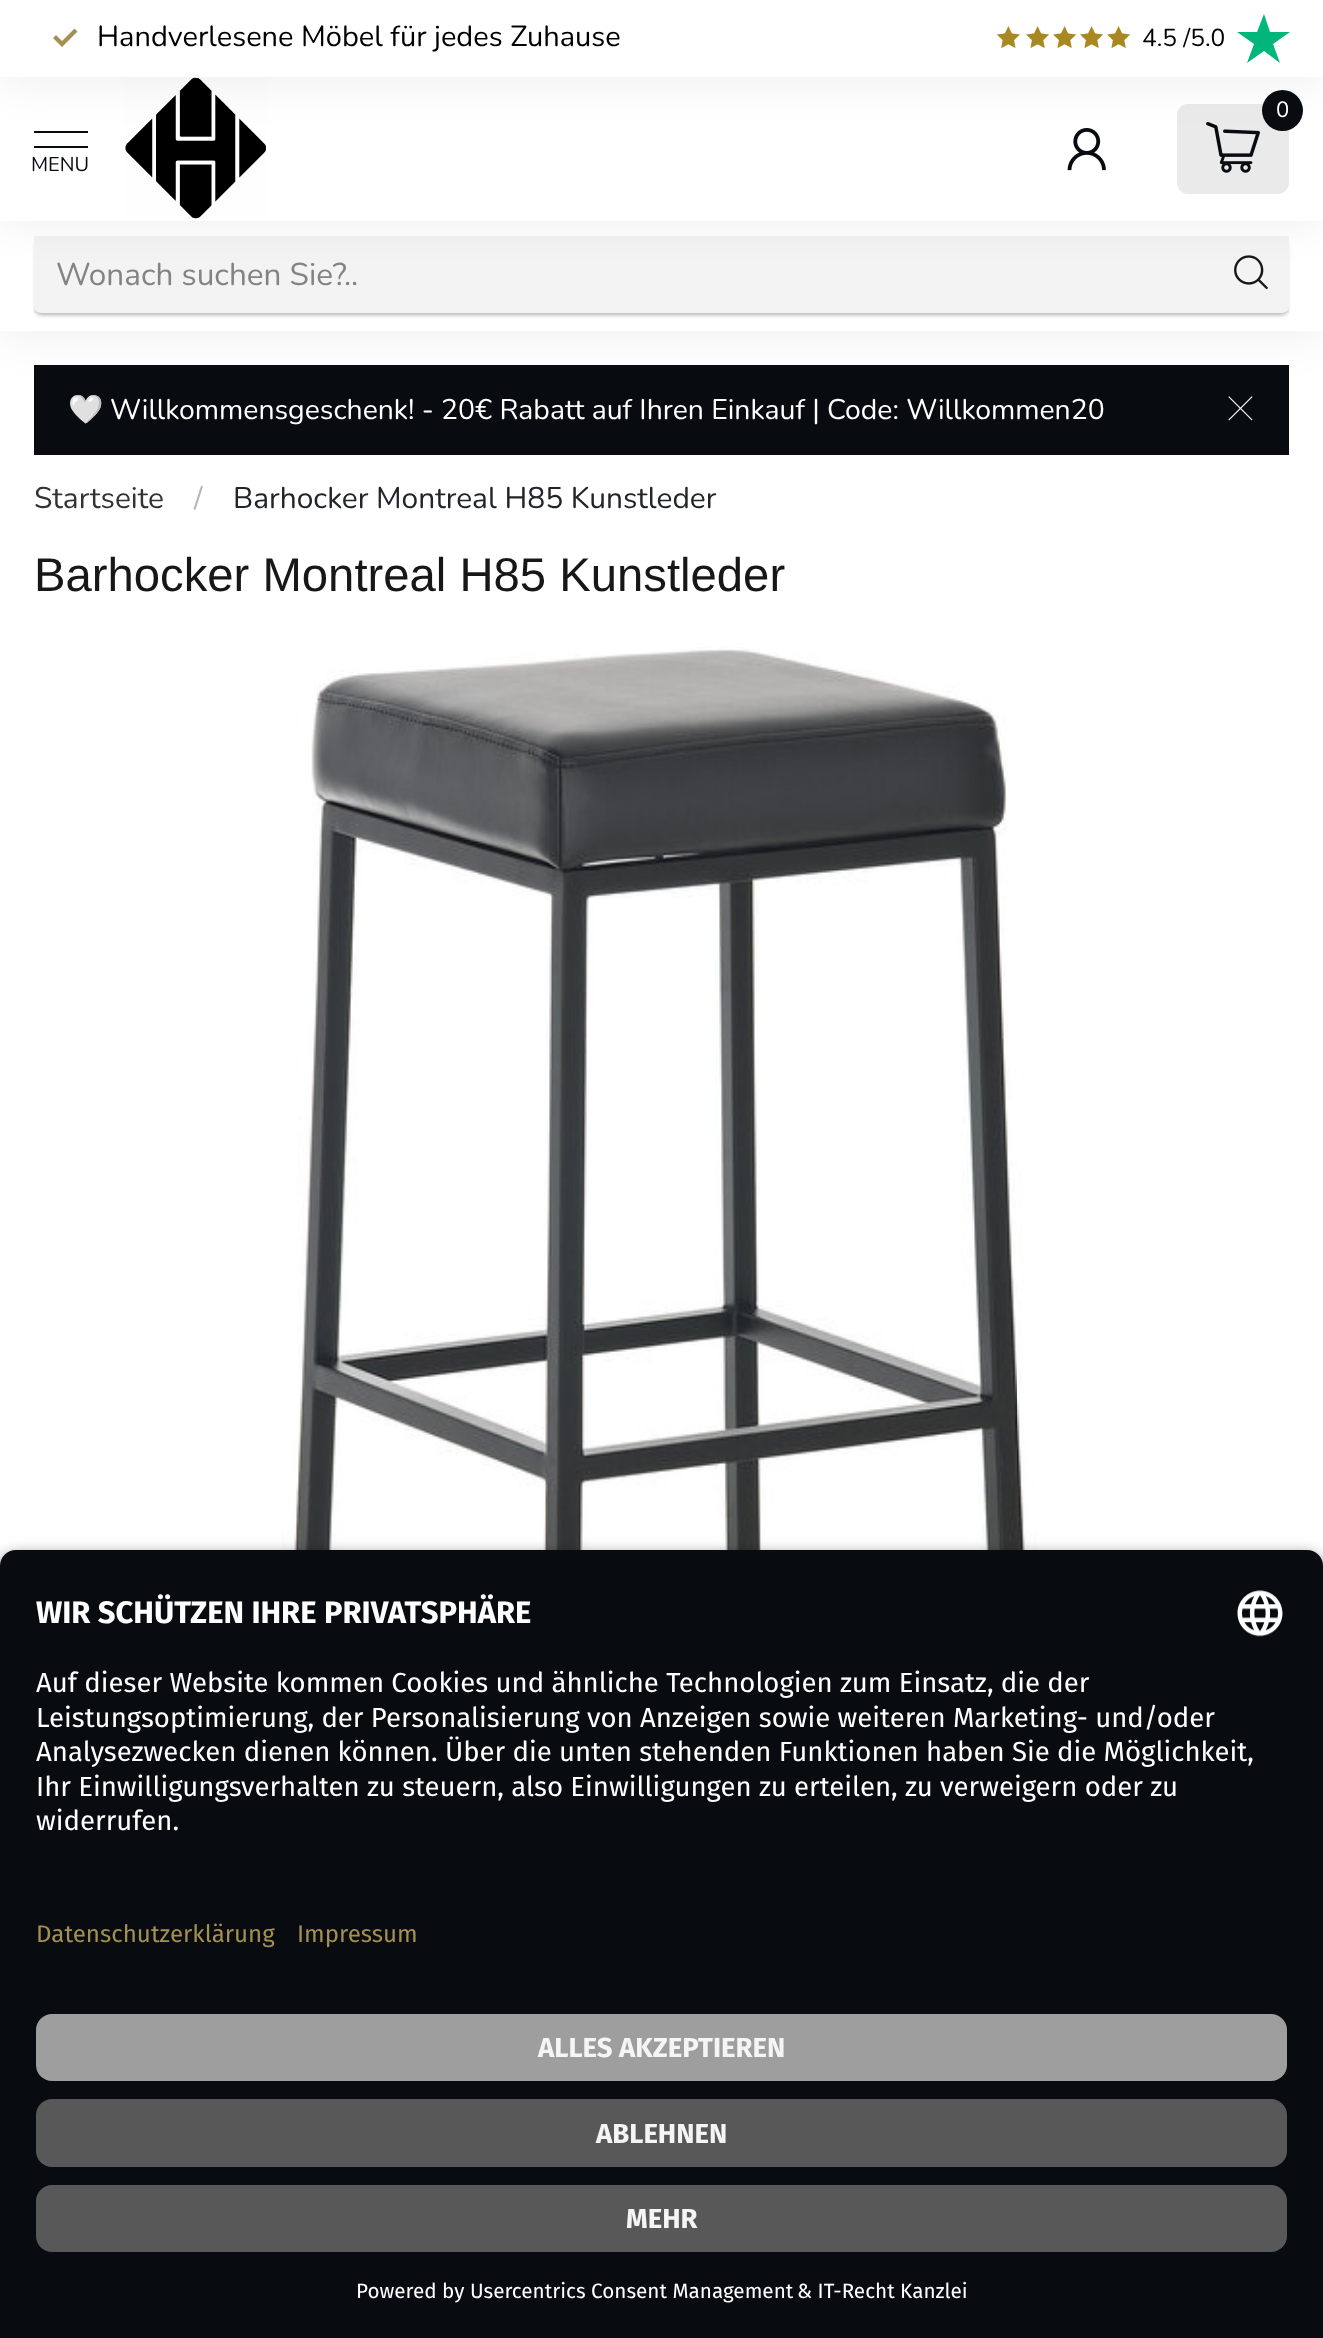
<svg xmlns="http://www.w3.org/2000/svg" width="1323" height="2338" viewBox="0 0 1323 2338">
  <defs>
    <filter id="blur1" x="-50%" y="-200%" width="200%" height="500%"><feGaussianBlur stdDeviation="25"/></filter>
    <clipPath id="clip1"><path d="M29 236H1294V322H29ZM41 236H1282C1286 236 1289 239 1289 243V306C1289 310 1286 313 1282 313H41C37 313 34 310 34 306V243C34 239 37 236 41 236Z" clip-rule="evenodd"/></clipPath>
    <filter id="blur2" x="-50%" y="-200%" width="200%" height="500%"><feGaussianBlur stdDeviation="2"/></filter>
    <filter id="blur3" x="-50%" y="-200%" width="200%" height="500%"><feGaussianBlur stdDeviation="22.5"/></filter>
    <filter id="blur4" x="-50%" y="-200%" width="200%" height="500%"><feGaussianBlur stdDeviation="8"/></filter>
  </defs>
  <rect width="100%" height="100%" fill="#ffffff"/>
  <rect x="34" y="365" width="1255" height="90" fill="#080c11"/>
  <image x="1228" y="396" width="25" height="25" href="img7.png"/>
  <rect x="0" y="221" width="1323" height="110" fill="#000000" fill-opacity="0.08" filter="url(#blur1)"/>
  <rect x="0" y="221" width="1323" height="110" fill="#ffffff"/>
  <g clip-path="url(#clip1)">
    <rect x="36" y="243" width="1251" height="72" rx="5" fill="#9b9b9b" fill-opacity="0.75" filter="url(#blur2)"/>
  </g>
  <rect x="34" y="236" width="1255" height="77" fill="#171717" fill-opacity="0.05"/>
  <image x="1234" y="255" width="34" height="34" href="img6.png"/>
  <rect x="0" y="0" width="1323" height="221" fill="#000000" fill-opacity="0.07" filter="url(#blur3)"/>
  <rect x="0" y="77" width="1323" height="144" fill="#ffffff"/>
  <rect x="0" y="0" width="1323" height="77" fill="#000000" fill-opacity="0.08" filter="url(#blur1)"/>
  <rect x="0" y="0" width="1323" height="77" fill="#ffffff"/>
  <path d="M62 47L53 38L56 35L62 41L74.5 28.5L77.5 31.5Z" fill="#a59051"/>
  <text x="97" y="46" font-family="Nunito" font-size="29" font-weight="200" fill="#000000">Handverlesene Möbel für jedes Zuhause</text>
  <image x="996" y="26" width="24" height="22" href="img1.png"/>
  <image x="1026" y="26" width="24" height="22" href="img2.png"/>
  <image x="1053" y="26" width="24" height="22" href="img2.png"/>
  <image x="1080" y="26" width="24" height="22" href="img2.png"/>
  <image x="1107" y="26" width="24" height="22" href="img2.png"/>
  <text x="1142" y="46" font-family="Nunito" font-size="24.5" font-weight="200" fill="#000000">4.5 /5.0</text>
  <path d="M1290 32H1270L1264 14L1257 32H1237L1254 44L1247 63L1264 51L1280 63L1273 44Z" fill="#00b67a"/>
  <rect x="1177" y="104" width="112" height="90" rx="11" fill="#6a6d70" fill-opacity="0.14"/>
  <circle cx="1282.5" cy="110.5" r="20.5" fill="#080c11"/>
  <text x="1276" y="117" font-family="Nunito" font-size="22" font-weight="200" fill="#ffffff">0</text>
  <image x="1206" y="122" width="54" height="51" href="img3.png"/>
  <image x="1067" y="128" width="39" height="43" href="img4.png"/>
  <rect x="34" y="131" width="54" height="2" fill="#080c11"/>
  <rect x="34" y="146" width="54" height="2" fill="#080c11"/>
  <text x="31" y="171" font-family="Nunito" font-size="20" font-weight="200" fill="#080c11">MENU</text>
  <image x="125" y="77" width="141" height="142" href="img5.png"/>
  <text x="56" y="285" font-family="Nunito" font-size="31.5" font-weight="200" fill="#838383">Wonach suchen Sie?..</text>
  <text x="68" y="419" font-family="Noto Color Emoji" font-size="28.35" fill="#ffffff">🤍</text>
  <text x="110" y="419" font-family="Nunito" font-size="28.35" font-weight="200" fill="#ffffff">Willkommensgeschenk! - 20€ Rabatt auf Ihren Einkauf | Code: Willkommen20</text>
  <text x="34" y="508" font-family="Nunito" font-size="29.9" font-weight="200" fill="#333333">Startseite</text>
  <text x="194" y="508" font-family="Nunito" font-size="29.9" font-weight="200" fill="#b5b6b8">/</text>
  <text x="233" y="508" font-family="Nunito" font-size="29.9" font-weight="200" fill="#212429">Barhocker Montreal H85 Kunstleder</text>
  <text x="34" y="591" font-family="Liberation Sans" font-size="47.25" fill="#171717">Barhocker Montreal H85 Kunstleder</text>
  <image x="281" y="647" width="757" height="903" href="img8.png"/>
  <rect x="0" y="1557" width="1323" height="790" rx="16" fill="#000000" fill-opacity="0.8" filter="url(#blur4)"/>
  <path d="M16 1550H1307C1316 1550 1323 1557 1323 1566V1886H0V1566C0 1557 7 1550 16 1550Z" fill="#080c11"/>
  <text x="36" y="1623" font-family="Fira Sans" font-size="31" font-weight="bold" fill="#ffffff">WIR SCHÜTZEN IHRE PRIVATSPHÄRE</text>
  <image x="1237" y="1590" width="46" height="47" href="img9.png"/>
  <text x="36" y="1692" font-family="Fira Sans" font-size="27.55" fill="#ffffff">Auf dieser Website kommen Cookies und ähnliche Technologien zum Einsatz, die der</text>
  <text x="36" y="1727" font-family="Fira Sans" font-size="27.55" fill="#ffffff">Leistungsoptimierung, der Personalisierung von Anzeigen sowie weiteren Marketing- und/oder</text>
  <text x="36" y="1761" font-family="Fira Sans" font-size="27.55" fill="#ffffff">Analysezwecken dienen können. Über die unten stehenden Funktionen haben Sie die Möglichkeit,</text>
  <text x="36" y="1796" font-family="Fira Sans" font-size="27.55" fill="#ffffff">Ihr Einwilligungsverhalten zu steuern, also Einwilligungen zu erteilen, zu verweigern oder zu</text>
  <text x="36" y="1830" font-family="Fira Sans" font-size="27.55" fill="#ffffff">widerrufen.</text>
  <rect x="0" y="1886" width="1323" height="452" fill="#080c11"/>
  <text x="36" y="1942" font-family="Fira Sans" font-size="24.1" fill="#a59051">Datenschutzerklärung</text>
  <text x="297" y="1942" font-family="Fira Sans" font-size="24.1" fill="#a59051">Impressum</text>
  <rect x="36" y="2014" width="1251" height="67" rx="16" fill="#9e9e9e"/>
  <text x="538" y="2057" font-family="Fira Sans" font-size="27.55" font-weight="bold" fill="#f5f5f5">ALLES AKZEPTIEREN</text>
  <rect x="36" y="2099" width="1251" height="68" rx="16" fill="#585858"/>
  <text x="596" y="2143" font-family="Fira Sans" font-size="27.55" font-weight="bold" fill="#f5f5f5">ABLEHNEN</text>
  <rect x="36" y="2185" width="1251" height="67" rx="16" fill="#585858"/>
  <text x="626" y="2228" font-family="Fira Sans" font-size="27.55" font-weight="bold" fill="#f5f5f5">MEHR</text>
  <text x="356" y="2298" font-family="Fira Sans" font-size="20.7" fill="#ffffff">Powered by Usercentrics Consent Management</text>
  <text x="797" y="2298" font-family="Fira Sans" font-size="20.7" fill="#ffffff">&amp; IT-Recht Kanzlei</text>
</svg>
